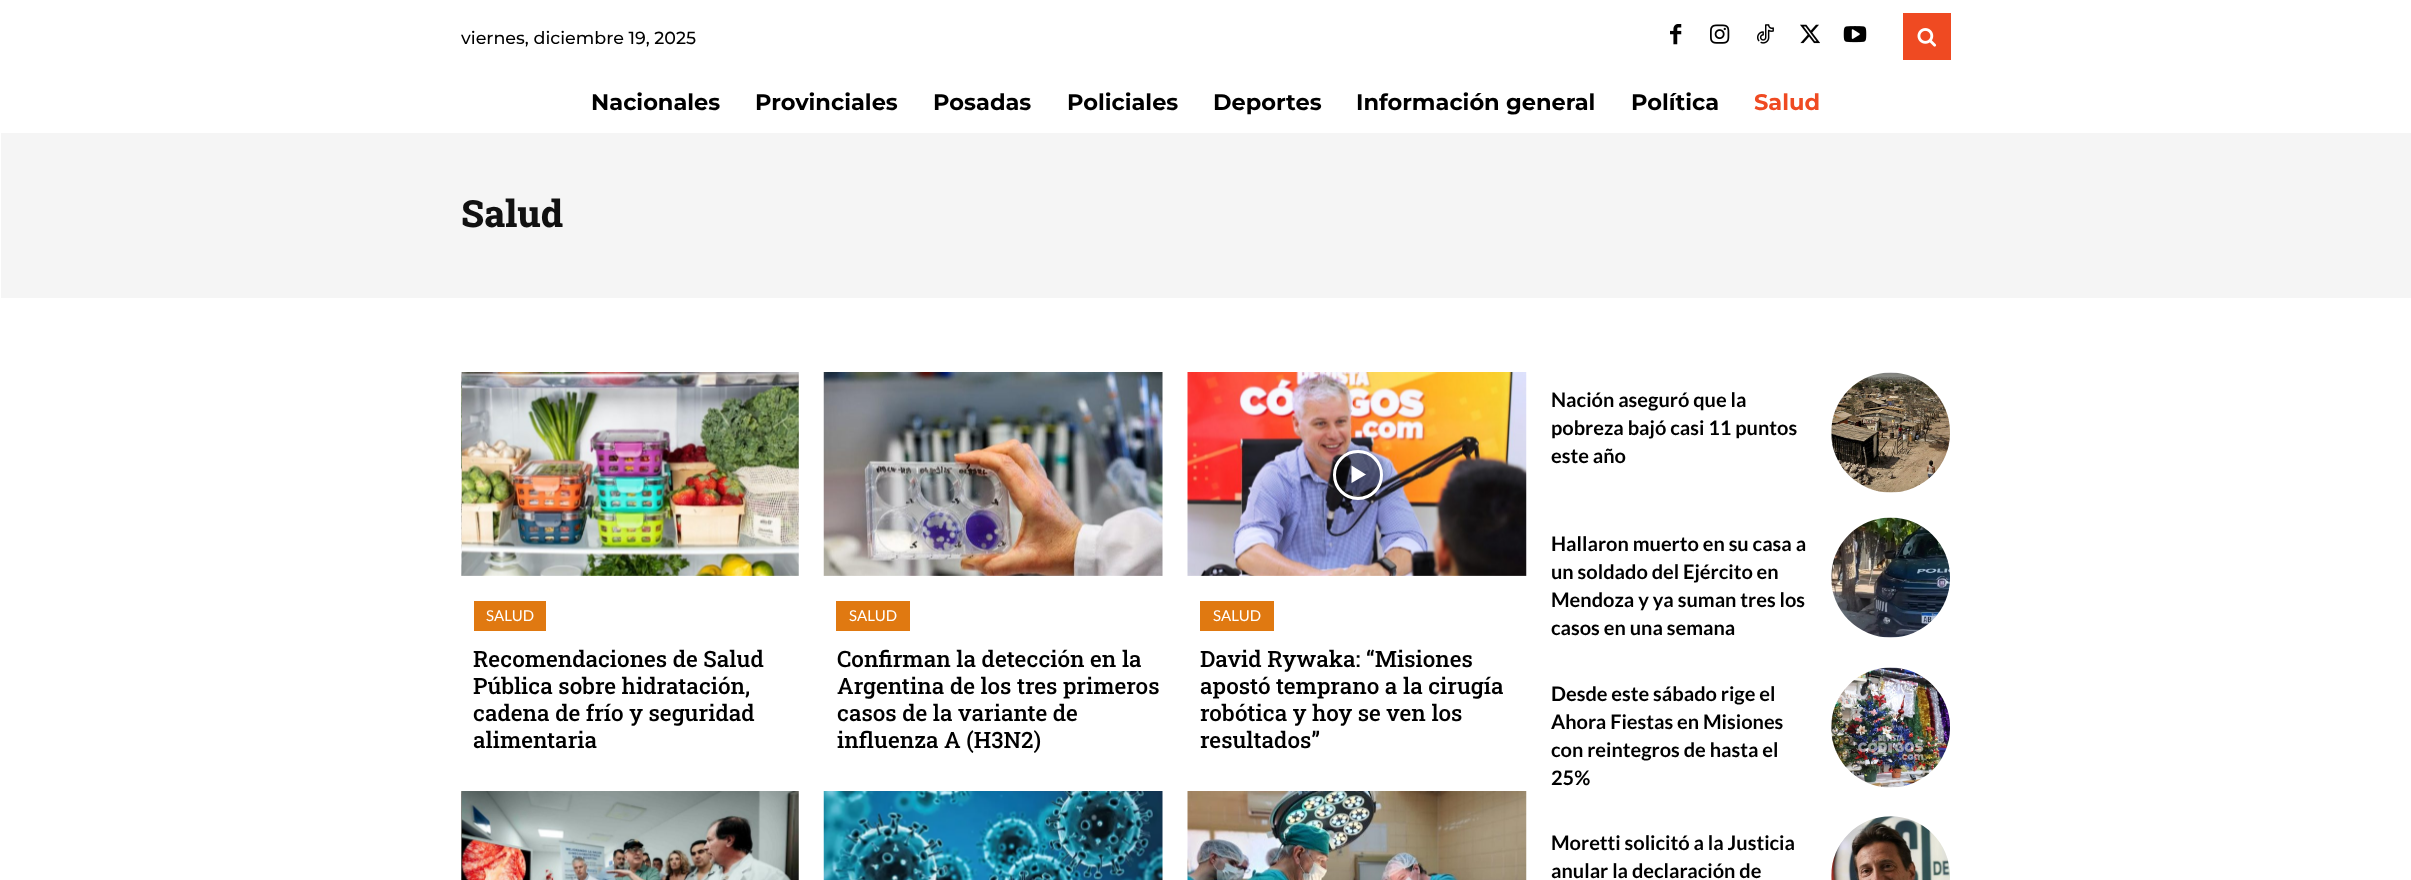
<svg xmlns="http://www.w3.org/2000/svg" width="2411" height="880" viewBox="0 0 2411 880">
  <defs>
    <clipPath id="clip1"><path d="M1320 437H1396V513H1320ZM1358 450C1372 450 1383 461 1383 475C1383 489 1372 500 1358 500C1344 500 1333 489 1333 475C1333 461 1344 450 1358 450Z" clip-rule="evenodd"/></clipPath>
    <filter id="blur1" x="-50%" y="-200%" width="200%" height="500%"><feGaussianBlur stdDeviation="4"/></filter>
  </defs>
  <rect width="100%" height="100%" fill="#ffffff"/>
  <text x="461" y="44" font-family="Montserrat" font-size="17.5" font-weight="500" fill="#000000">viernes, diciembre 19, 2025</text>
  <image x="1670" y="24" width="12" height="21" href="img1.png"/>
  <image x="1710" y="24" width="20" height="20" href="img2.png"/>
  <image x="1757" y="24" width="17" height="20" href="img3.png"/>
  <image x="1800" y="24" width="20" height="20" href="img4.png"/>
  <image x="1843" y="26" width="24" height="17" href="img5.png"/>
  <rect x="1903" y="13" width="48" height="47" fill="#ef4a22"/>
  <image x="1917" y="28" width="20" height="19" href="img6.png"/>
  <text x="591" y="110" font-family="Montserrat" font-size="22.5" font-weight="bold" fill="#000000">Nacionales</text>
  <text x="755" y="110" font-family="Montserrat" font-size="22.5" font-weight="bold" fill="#000000">Provinciales</text>
  <text x="933" y="110" font-family="Montserrat" font-size="22.5" font-weight="bold" fill="#000000">Posadas</text>
  <text x="1067" y="110" font-family="Montserrat" font-size="22.5" font-weight="bold" fill="#000000">Policiales</text>
  <text x="1213" y="110" font-family="Montserrat" font-size="22.5" font-weight="bold" fill="#000000">Deportes</text>
  <text x="1356" y="110" font-family="Montserrat" font-size="22.5" font-weight="bold" fill="#000000">Información general</text>
  <text x="1631" y="110" font-family="Montserrat" font-size="22.5" font-weight="bold" fill="#000000">Política</text>
  <text x="1754" y="110" font-family="Montserrat" font-size="22.5" font-weight="bold" fill="#ef4a22">Salud</text>
  <rect x="1" y="133" width="2410" height="165" fill="#f5f5f5"/>
  <text x="461" y="227" font-family="Roboto Slab" font-size="37.5" font-weight="800" fill="#111111">Salud</text>
  <image x="461" y="372" width="338" height="204" href="img7.png"/>
  <rect x="474" y="601" width="72" height="30" fill="#e07911"/>
  <text x="486" y="621" font-family="Lato" font-size="15" fill="#ffffff">SALUD</text>
  <text x="473" y="667" font-family="Roboto Slab" font-size="22.5" font-weight="500" fill="#000000">Recomendaciones de Salud</text>
  <text x="473" y="694" font-family="Roboto Slab" font-size="22.5" font-weight="500" fill="#000000">Pública sobre hidratación,</text>
  <text x="473" y="721" font-family="Roboto Slab" font-size="22.5" font-weight="500" fill="#000000">cadena de frío y seguridad</text>
  <text x="473" y="748" font-family="Roboto Slab" font-size="22.5" font-weight="500" fill="#000000">alimentaria</text>
  <image x="823" y="372" width="340" height="204" href="img8.png"/>
  <rect x="836" y="601" width="74" height="30" fill="#e07911"/>
  <text x="849" y="621" font-family="Lato" font-size="15" fill="#ffffff">SALUD</text>
  <text x="837" y="667" font-family="Roboto Slab" font-size="22.5" font-weight="500" fill="#000000">Confirman la detección en la</text>
  <text x="837" y="694" font-family="Roboto Slab" font-size="22.5" font-weight="500" fill="#000000">Argentina de los tres primeros</text>
  <text x="837" y="721" font-family="Roboto Slab" font-size="22.5" font-weight="500" fill="#000000">casos de la variante de</text>
  <text x="837" y="748" font-family="Roboto Slab" font-size="22.5" font-weight="500" fill="#000000">influenza A (H3N2)</text>
  <image x="1187" y="372" width="340" height="204" href="img9.png"/>
  <g clip-path="url(#clip1)">
    <rect x="1333" y="450" width="50" height="50" rx="25" fill="#000000" fill-opacity="0.4" filter="url(#blur1)"/>
  </g>
  <circle cx="1358" cy="475" r="23.5" fill="#000000" fill-opacity="0.48" stroke="#ffffff" stroke-width="3"/>
  <path d="M1351.5 465.5V483L1366 474.5Z" fill="#ffffff"/>
  <rect x="1200" y="601" width="74" height="30" fill="#e07911"/>
  <text x="1213" y="621" font-family="Lato" font-size="15" fill="#ffffff">SALUD</text>
  <text x="1200" y="667" font-family="Roboto Slab" font-size="22.5" font-weight="500" fill="#000000">David Rywaka: “Misiones</text>
  <text x="1200" y="694" font-family="Roboto Slab" font-size="22.5" font-weight="500" fill="#000000">apostó temprano a la cirugía</text>
  <text x="1200" y="721" font-family="Roboto Slab" font-size="22.5" font-weight="500" fill="#000000">robótica y hoy se ven los</text>
  <text x="1200" y="748" font-family="Roboto Slab" font-size="22.5" font-weight="500" fill="#000000">resultados”</text>
  <image x="461" y="791" width="338" height="89" href="img10.png"/>
  <image x="823" y="791" width="340" height="89" href="img11.png"/>
  <image x="1187" y="791" width="340" height="89" href="img12.png"/>
  <text x="1551" y="407" font-family="Lato" font-size="20" font-weight="bold" fill="#000000">Nación aseguró que la</text>
  <text x="1551" y="435" font-family="Lato" font-size="20" font-weight="bold" fill="#000000">pobreza bajó casi 11 puntos</text>
  <text x="1551" y="463" font-family="Lato" font-size="20" font-weight="bold" fill="#000000">este año</text>
  <image x="1831" y="372" width="119" height="121" href="img13.png"/>
  <text x="1551" y="551" font-family="Lato" font-size="20" font-weight="bold" fill="#000000">Hallaron muerto en su casa a</text>
  <text x="1551" y="579" font-family="Lato" font-size="20" font-weight="bold" fill="#000000">un soldado del Ejército en</text>
  <text x="1551" y="607" font-family="Lato" font-size="20" font-weight="bold" fill="#000000">Mendoza y ya suman tres los</text>
  <text x="1551" y="635" font-family="Lato" font-size="20" font-weight="bold" fill="#000000">casos en una semana</text>
  <image x="1831" y="517" width="119" height="121" href="img14.png"/>
  <text x="1551" y="701" font-family="Lato" font-size="20" font-weight="bold" fill="#000000">Desde este sábado rige el</text>
  <text x="1551" y="729" font-family="Lato" font-size="20" font-weight="bold" fill="#000000">Ahora Fiestas en Misiones</text>
  <text x="1551" y="757" font-family="Lato" font-size="20" font-weight="bold" fill="#000000">con reintegros de hasta el</text>
  <text x="1551" y="785" font-family="Lato" font-size="20" font-weight="bold" fill="#000000">25%</text>
  <image x="1831" y="667" width="119" height="121" href="img15.png"/>
  <text x="1551" y="850" font-family="Lato" font-size="20" font-weight="bold" fill="#000000">Moretti solicitó a la Justicia</text>
  <text x="1551" y="878" font-family="Lato" font-size="20" font-weight="bold" fill="#000000">anular la declaración de</text>
  <image x="1831" y="816" width="119" height="64" href="img16.png"/>
</svg>
